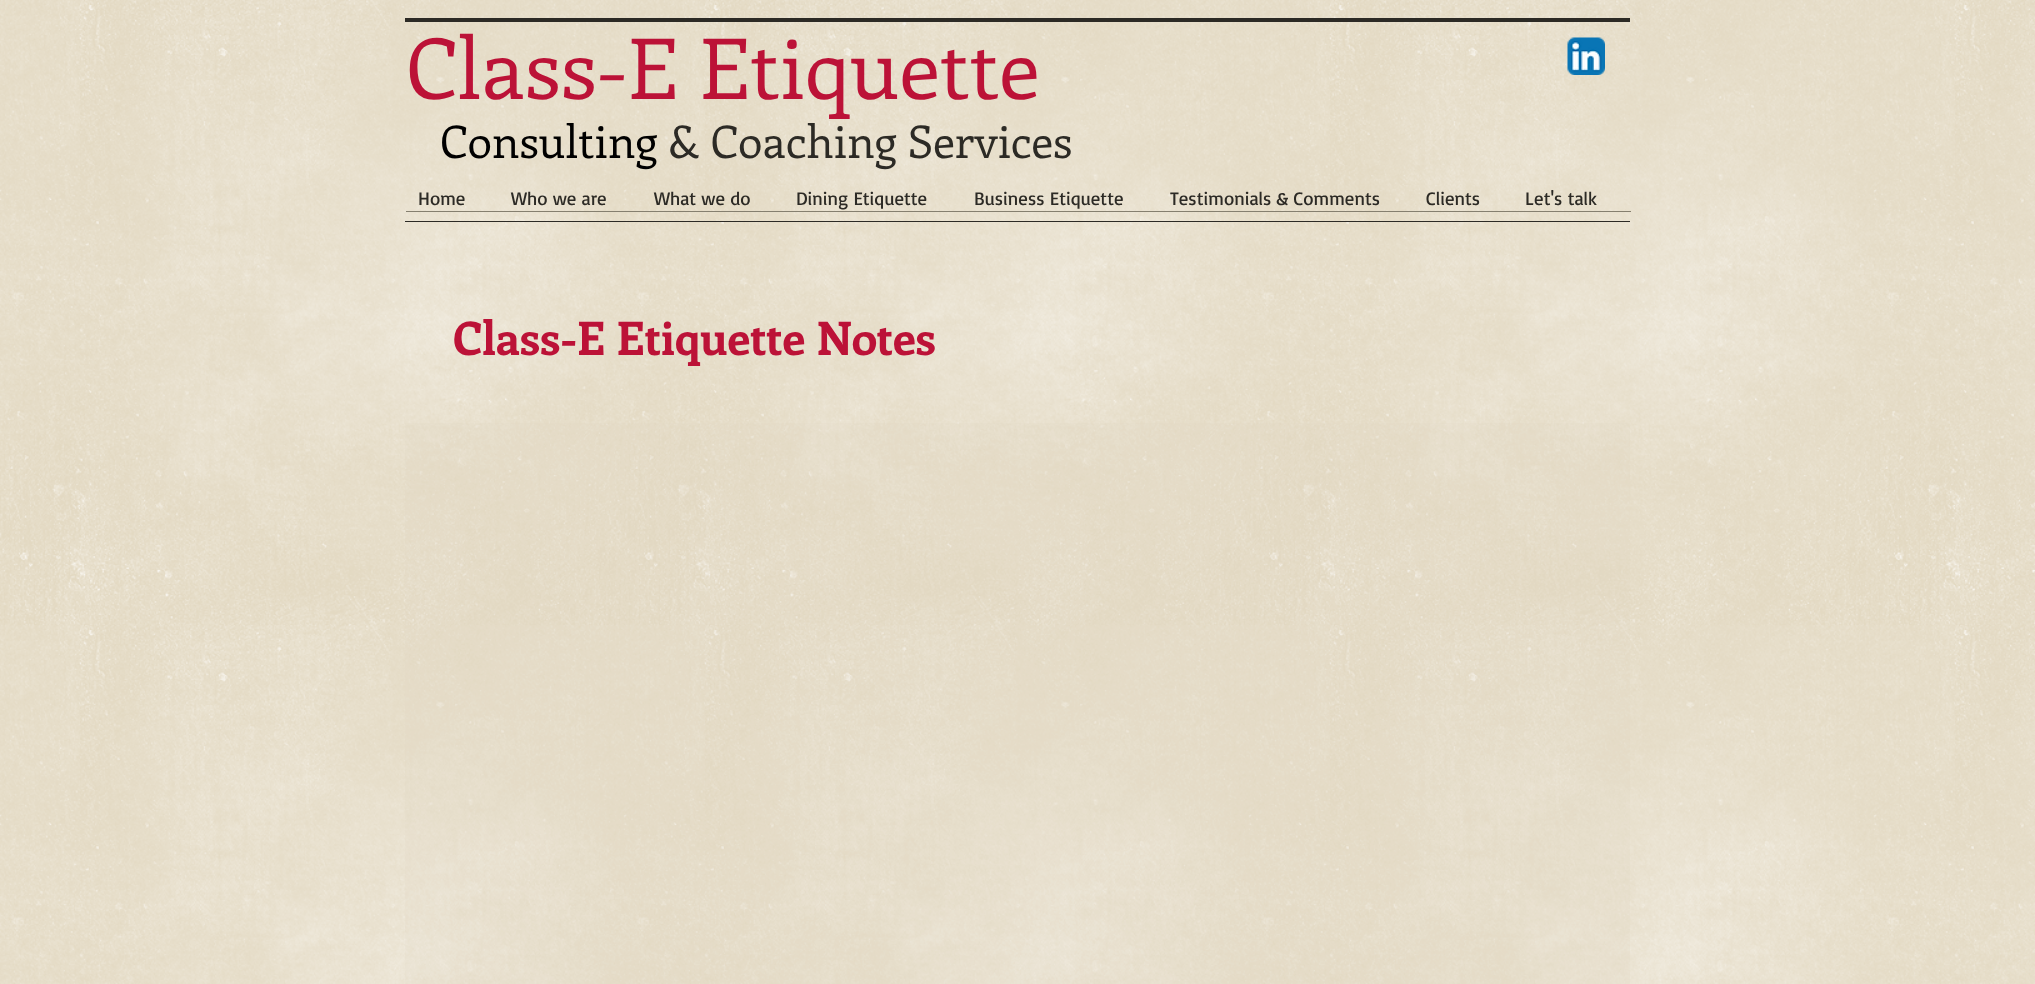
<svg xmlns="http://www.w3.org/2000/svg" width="2035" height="984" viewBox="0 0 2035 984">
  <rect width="100%" height="100%" fill="#e3d9c2"/>
  <image x="0" y="0" width="2035" height="984" href="img1.png"/>
  <rect x="405" y="18" width="1225" height="4" fill="#2c2a25"/>
  <text x="406" y="99" font-family="Enriqueta" font-size="83.75" fill="#bc1237">Class-E Etiquette</text>
  <text x="440" y="158" font-family="Enriqueta" font-size="45" fill="#000000">Consulting</text>
  <text x="669" y="158" font-family="Enriqueta" font-size="45" fill="#2c2a25">&amp; Coaching Services</text>
  <image x="1567" y="37" width="38" height="38" href="img2.png"/>
  <text x="418" y="205" font-family="Basic" font-size="18.75" fill="#2c2a25">Home</text>
  <text x="511" y="205" font-family="Basic" font-size="18.75" fill="#2c2a25">Who we are</text>
  <text x="654" y="205" font-family="Basic" font-size="18.75" fill="#2c2a25">What we do</text>
  <text x="796" y="205" font-family="Basic" font-size="18.75" fill="#2c2a25">Dining Etiquette</text>
  <text x="974" y="205" font-family="Basic" font-size="18.75" fill="#2c2a25">Business Etiquette</text>
  <text x="1170" y="205" font-family="Basic" font-size="18.75" fill="#2c2a25">Testimonials &amp; Comments</text>
  <text x="1426" y="205" font-family="Basic" font-size="18.75" fill="#2c2a25">Clients</text>
  <text x="1525" y="205" font-family="Basic" font-size="18.75" fill="#2c2a25">Let's talk</text>
  <rect x="405" y="221" width="1225" height="1" fill="#2c2a25"/>
  <rect x="406" y="211" width="1225" height="1" fill="#857f6f"/>
  <text x="453" y="355" font-family="Enriqueta" font-size="46.25" font-weight="bold" fill="#bc1237">Class-E Etiquette Notes</text>
  <rect x="405" y="423" width="1225" height="561" fill="#e3d9c2" fill-opacity="0.2"/>
</svg>
